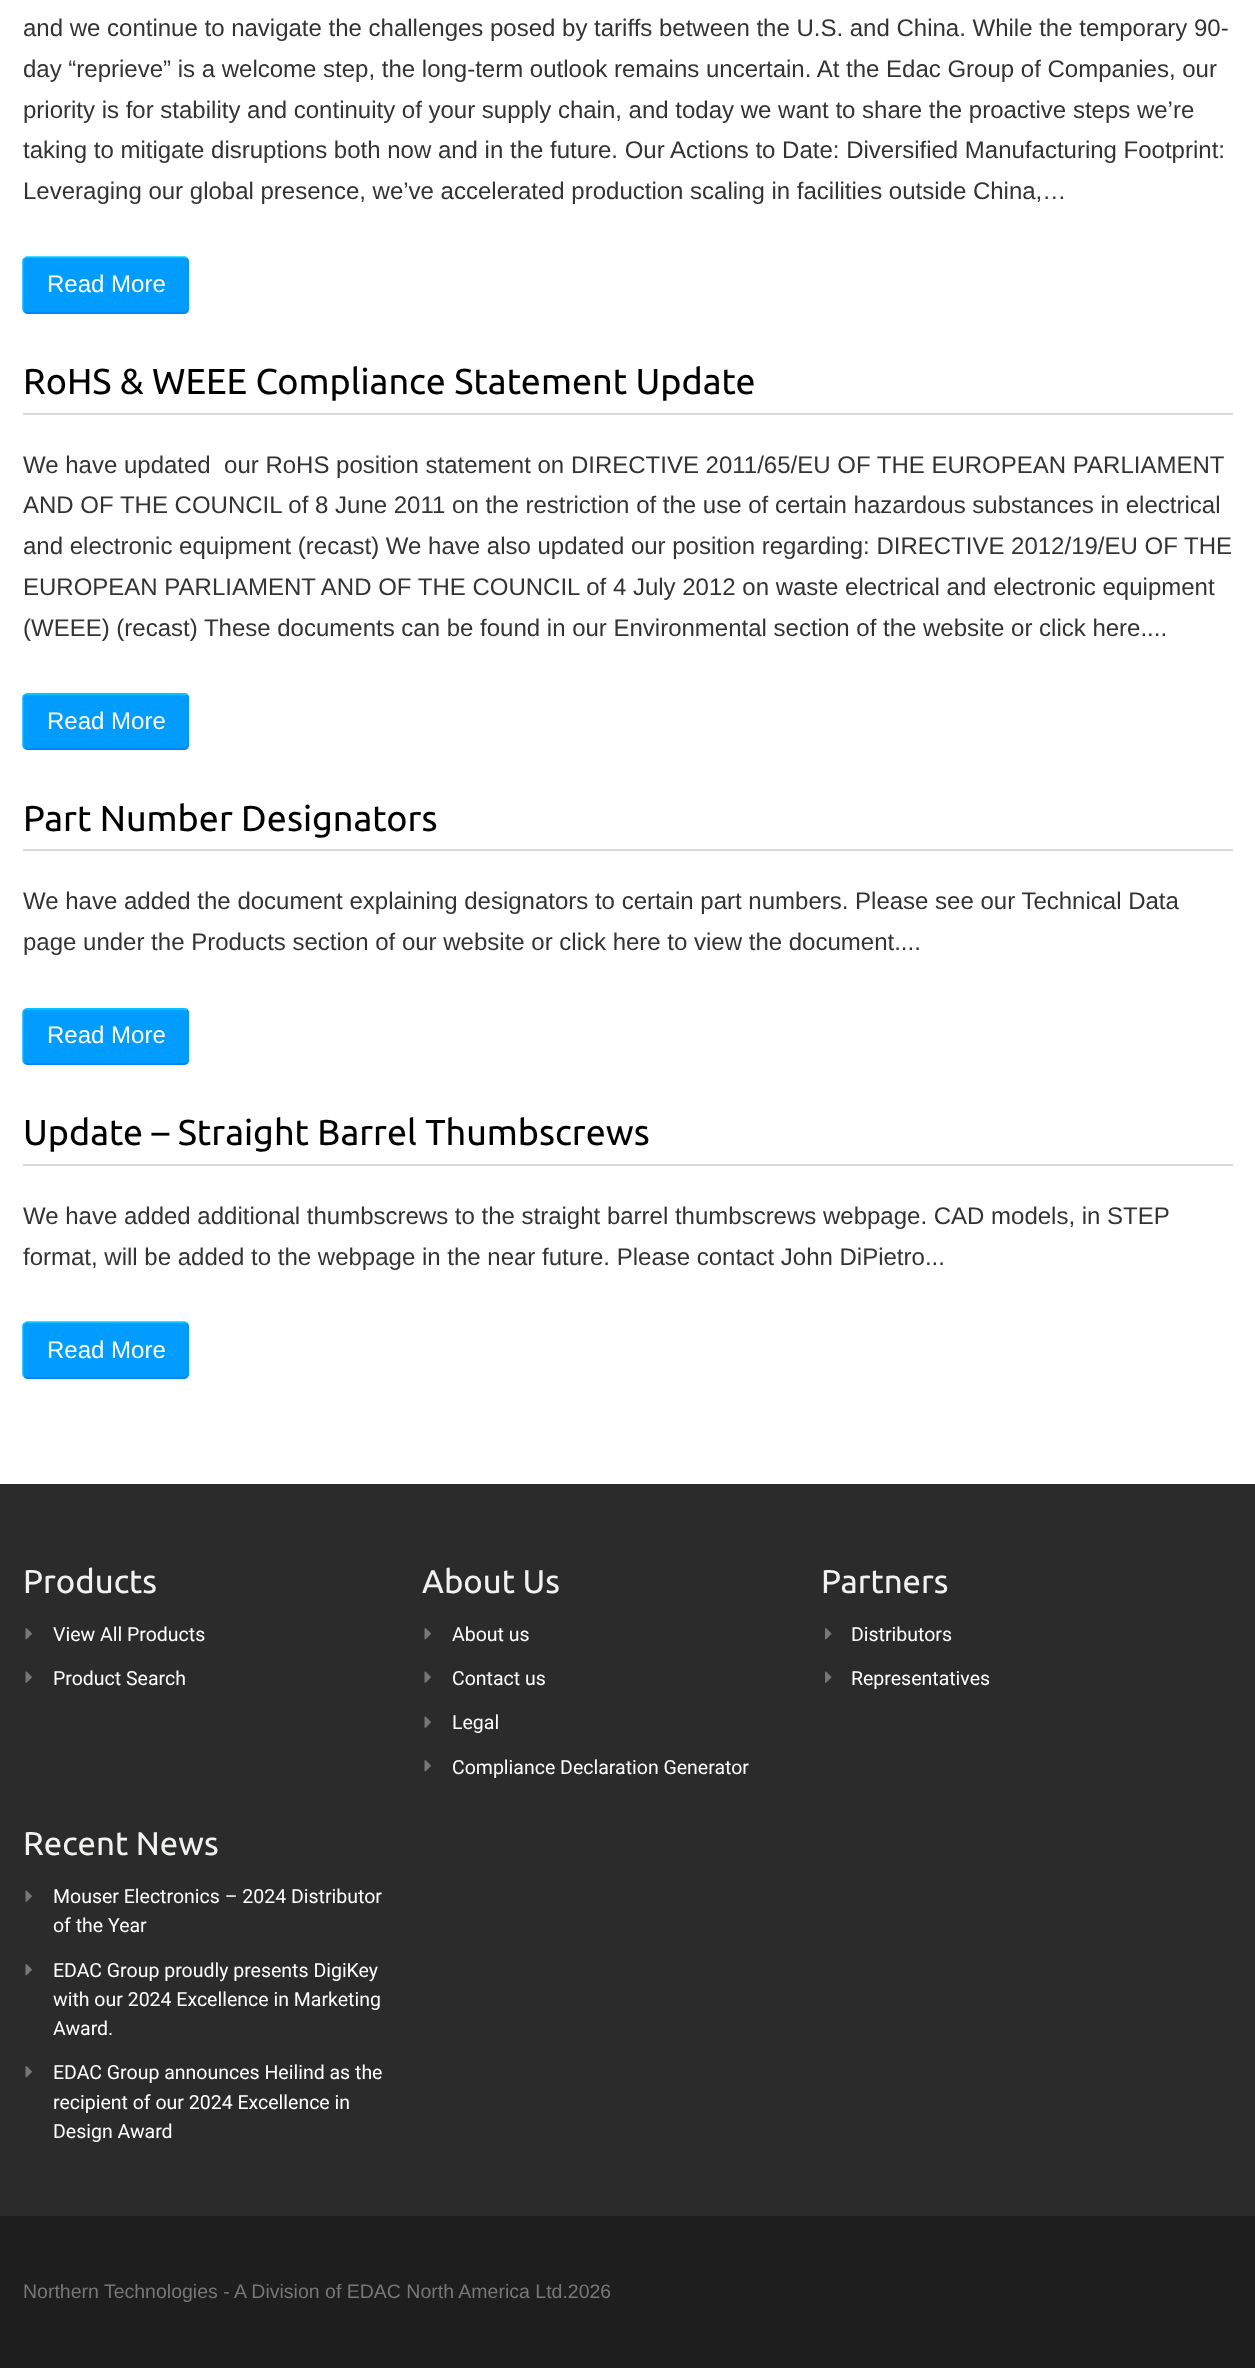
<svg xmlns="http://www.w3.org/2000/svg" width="1255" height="2368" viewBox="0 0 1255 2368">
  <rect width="100%" height="100%" fill="#ffffff"/>
  <text x="23" y="36" font-family="Liberation Sans" font-size="24" fill="#333333">and we continue to navigate the challenges posed by tariffs between the U.S. and China. While the temporary 90-</text>
  <text x="23" y="77" font-family="Liberation Sans" font-size="24" fill="#333333">day “reprieve” is a welcome step, the long-term outlook remains uncertain. At the Edac Group of Companies, our</text>
  <text x="23" y="118" font-family="Liberation Sans" font-size="24" fill="#333333">priority is for stability and continuity of your supply chain, and today we want to share the proactive steps we’re</text>
  <text x="23" y="158" font-family="Liberation Sans" font-size="24" fill="#333333">taking to mitigate disruptions both now and in the future. Our Actions to Date: Diversified Manufacturing Footprint:</text>
  <text x="23" y="199" font-family="Liberation Sans" font-size="24" fill="#333333">Leveraging our global presence, we’ve accelerated production scaling in facilities outside China,…</text>
  <rect x="23" y="257" width="166" height="57" rx="5" fill="#009cff"/>
  <path d="M24.5 258.5C25 257.5 26 257 27 257H184.5C185.5 257 186.5 257.5 187 258.5" fill="none" stroke="#00d4ff" stroke-width="1.5"/>
  <path d="M187 258.5C188 259 188 260 188 261V309C188 310 188 311 187 311.5" fill="none" stroke="#0094ff" stroke-width="1.5"/>
  <path d="M187 311.5C186.5 312.5 185.5 313 184.5 313H27C26 313 25 312.5 24.5 311.5" fill="none" stroke="#007dff" stroke-width="1.5"/>
  <path d="M24.5 311.5C23.5 311 23 310 23 309V261C23 260 23.5 259 24.5 258.5" fill="none" stroke="#00baff" stroke-width="1.5"/>
  <text x="47" y="292" font-family="Liberation Sans" font-size="24" fill="#ffffff">Read More</text>
  <rect x="23" y="413" width="1210" height="2" fill="#d9d9d9"/>
  <text x="23" y="394" font-family="Ubuntu" font-size="36" fill="#000000">RoHS &amp; WEEE Compliance Statement Update</text>
  <text x="23" y="473" font-family="Liberation Sans" font-size="24" fill="#333333" xml:space="preserve">We have updated  our RoHS position statement on DIRECTIVE 2011/65/EU OF THE EUROPEAN PARLIAMENT</text>
  <text x="23" y="513" font-family="Liberation Sans" font-size="24" fill="#333333">AND OF THE COUNCIL of 8 June 2011 on the restriction of the use of certain hazardous substances in electrical</text>
  <text x="23" y="554" font-family="Liberation Sans" font-size="24" fill="#333333">and electronic equipment (recast) We have also updated our position regarding: DIRECTIVE 2012/19/EU OF THE</text>
  <text x="23" y="595" font-family="Liberation Sans" font-size="24" fill="#333333">EUROPEAN PARLIAMENT AND OF THE COUNCIL of 4 July 2012 on waste electrical and electronic equipment</text>
  <text x="23" y="636" font-family="Liberation Sans" font-size="24" fill="#333333">(WEEE) (recast) These documents can be found in our Environmental section of the website or click here....</text>
  <rect x="23" y="693" width="166" height="57" rx="5" fill="#009cff"/>
  <path d="M24.5 695C25 694 26 694 27 694H184.5C185.5 694 186.5 694 187 695" fill="none" stroke="#00d4ff" stroke-width="1.5"/>
  <path d="M187 695C188 695.5 188 696.5 188 697.5V745.5C188 746.5 188 747.5 187 748" fill="none" stroke="#0094ff" stroke-width="1.5"/>
  <path d="M187 748C186.5 749 185.5 749 184.5 749H27C26 749 25 749 24.5 748" fill="none" stroke="#007dff" stroke-width="1.5"/>
  <path d="M24.5 748C23.5 747.5 23 746.5 23 745.5V697.5C23 696.5 23.5 695.5 24.5 695" fill="none" stroke="#00baff" stroke-width="1.5"/>
  <text x="47" y="729" font-family="Liberation Sans" font-size="24" fill="#ffffff">Read More</text>
  <rect x="23" y="849" width="1210" height="2" fill="#d9d9d9"/>
  <text x="23" y="831" font-family="Ubuntu" font-size="36" fill="#000000">Part Number Designators</text>
  <text x="23" y="909" font-family="Liberation Sans" font-size="24" fill="#333333">We have added the document explaining designators to certain part numbers. Please see our Technical Data</text>
  <text x="23" y="950" font-family="Liberation Sans" font-size="24" fill="#333333">page under the Products section of our website or click here to view the document....</text>
  <rect x="23" y="1008" width="166" height="57" rx="5" fill="#009cff"/>
  <path d="M24.5 1010C25 1009 26 1009 27 1009H184.5C185.5 1009 186.5 1009 187 1010" fill="none" stroke="#00d4ff" stroke-width="1.5"/>
  <path d="M187 1010C188 1010.5 188 1011.5 188 1012.5V1060.5C188 1061.5 188 1062.5 187 1063" fill="none" stroke="#0094ff" stroke-width="1.5"/>
  <path d="M187 1063C186.5 1064 185.5 1064 184.5 1064H27C26 1064 25 1064 24.5 1063" fill="none" stroke="#007dff" stroke-width="1.5"/>
  <path d="M24.5 1063C23.5 1062.5 23 1061.5 23 1060.5V1012.5C23 1011.5 23.5 1010.5 24.5 1010" fill="none" stroke="#00baff" stroke-width="1.5"/>
  <text x="47" y="1043" font-family="Liberation Sans" font-size="24" fill="#ffffff">Read More</text>
  <rect x="23" y="1164" width="1210" height="2" fill="#d9d9d9"/>
  <text x="23" y="1145" font-family="Ubuntu" font-size="36" fill="#000000">Update – Straight Barrel Thumbscrews</text>
  <text x="23" y="1224" font-family="Liberation Sans" font-size="24" fill="#333333">We have added additional thumbscrews to the straight barrel thumbscrews webpage. CAD models, in STEP</text>
  <text x="23" y="1265" font-family="Liberation Sans" font-size="24" fill="#333333">format, will be added to the webpage in the near future. Please contact John DiPietro...</text>
  <rect x="23" y="1322" width="166" height="57" rx="5" fill="#009cff"/>
  <path d="M24.5 1323.5C25 1322.5 26 1322 27 1322H184.5C185.5 1322 186.5 1322.5 187 1323.5" fill="none" stroke="#00d4ff" stroke-width="1.5"/>
  <path d="M187 1323.5C188 1324 188 1325 188 1326V1374C188 1375 188 1376 187 1376.5" fill="none" stroke="#0094ff" stroke-width="1.5"/>
  <path d="M187 1376.5C186.5 1377.5 185.5 1378 184.5 1378H27C26 1378 25 1377.5 24.5 1376.5" fill="none" stroke="#007dff" stroke-width="1.5"/>
  <path d="M24.5 1376.5C23.5 1376 23 1375 23 1374V1326C23 1325 23.5 1324 24.5 1323.5" fill="none" stroke="#00baff" stroke-width="1.5"/>
  <text x="47" y="1358" font-family="Liberation Sans" font-size="24" fill="#ffffff">Read More</text>
  <rect x="0" y="1484" width="1255" height="732" fill="#2b2b2b"/>
  <text x="23" y="1593" font-family="Ubuntu" font-size="33" fill="#f0f2ef">Products</text>
  <image x="25" y="1628" width="7" height="12" href="img1.png"/>
  <text x="53" y="1641" font-family="Roboto" font-size="19.5" fill="#ffffff">View All Products</text>
  <image x="25" y="1671" width="7" height="12" href="img2.png"/>
  <text x="53" y="1685" font-family="Roboto" font-size="19.5" fill="#ffffff">Product Search</text>
  <text x="422" y="1593" font-family="Ubuntu" font-size="33" fill="#f0f2ef">About Us</text>
  <image x="424" y="1628" width="7" height="12" href="img1.png"/>
  <text x="452" y="1641" font-family="Roboto" font-size="19.5" fill="#ffffff">About us</text>
  <image x="424" y="1671" width="7" height="12" href="img2.png"/>
  <text x="452" y="1685" font-family="Roboto" font-size="19.5" fill="#ffffff">Contact us</text>
  <image x="424" y="1716" width="7" height="12" href="img2.png"/>
  <text x="452" y="1729" font-family="Roboto" font-size="19.5" fill="#ffffff">Legal</text>
  <image x="424" y="1760" width="7" height="12" href="img1.png"/>
  <text x="452" y="1774" font-family="Roboto" font-size="19.5" fill="#ffffff">Compliance Declaration Generator</text>
  <text x="821" y="1593" font-family="Ubuntu" font-size="33" fill="#f0f2ef">Partners</text>
  <image x="825" y="1628" width="7" height="12" href="img3.png"/>
  <text x="851" y="1641" font-family="Roboto" font-size="19.5" fill="#ffffff">Distributors</text>
  <image x="825" y="1671" width="7" height="12" href="img4.png"/>
  <text x="851" y="1685" font-family="Roboto" font-size="19.5" fill="#ffffff">Representatives</text>
  <text x="23" y="1855" font-family="Ubuntu" font-size="33" fill="#f0f2ef">Recent News</text>
  <image x="25" y="1890" width="7" height="12" href="img2.png"/>
  <text x="53" y="1903" font-family="Roboto" font-size="19.5" fill="#ffffff">Mouser Electronics – 2024 Distributor</text>
  <text x="53" y="1932" font-family="Roboto" font-size="19.5" fill="#ffffff">of the Year</text>
  <image x="25" y="1964" width="7" height="12" href="img1.png"/>
  <text x="53" y="1977" font-family="Roboto" font-size="19.5" fill="#ffffff">EDAC Group proudly presents DigiKey</text>
  <text x="53" y="2006" font-family="Roboto" font-size="19.5" fill="#ffffff">with our 2024 Excellence in Marketing</text>
  <text x="53" y="2035" font-family="Roboto" font-size="19.5" fill="#ffffff">Award.</text>
  <image x="25" y="2066" width="7" height="12" href="img1.png"/>
  <text x="53" y="2079" font-family="Roboto" font-size="19.5" fill="#ffffff">EDAC Group announces Heilind as the</text>
  <text x="53" y="2109" font-family="Roboto" font-size="19.5" fill="#ffffff">recipient of our 2024 Excellence in</text>
  <text x="53" y="2138" font-family="Roboto" font-size="19.5" fill="#ffffff">Design Award</text>
  <rect x="0" y="2216" width="1255" height="152" fill="#1e1e1e"/>
  <text x="23" y="2298" font-family="Liberation Sans" font-size="19.5" fill="#777777">Northern Technologies - A Division of EDAC North America Ltd.2026</text>
</svg>
